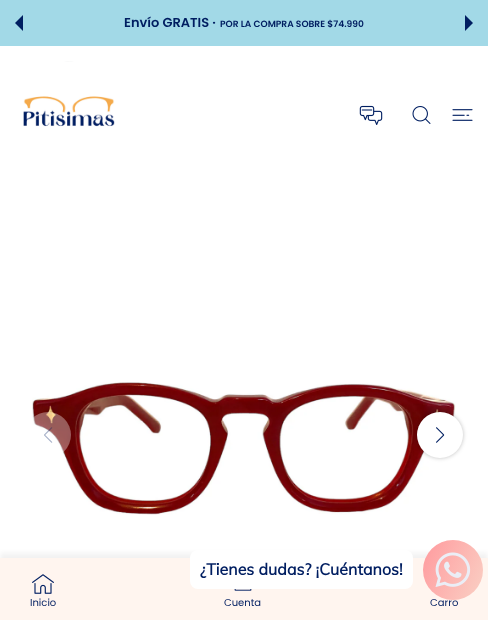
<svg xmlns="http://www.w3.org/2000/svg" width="488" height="620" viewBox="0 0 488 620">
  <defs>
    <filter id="blur1" x="-50%" y="-200%" width="200%" height="500%"><feGaussianBlur stdDeviation="2"/></filter>
    <filter id="blur2" x="-50%" y="-200%" width="200%" height="500%"><feGaussianBlur stdDeviation="2.5"/></filter>
    <linearGradient id="g1" gradientUnits="userSpaceOnUse" x1="417" y1="553" x2="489" y2="587"><stop offset="0" stop-color="#ff9a9e"/><stop offset="1" stop-color="#fad0c4"/></linearGradient>
  </defs>
  <rect width="100%" height="100%" fill="#ffffff"/>
  <rect x="0" y="0" width="488" height="46" fill="#a2d9e7"/>
  <path d="M23 15V31L15 23Z" fill="#001e61"/>
  <path d="M465 31V15L473 23Z" fill="#001e61"/>
  <text x="124" y="27" font-family="Poppins" font-size="13" font-weight="600" fill="#001e61">Envío GRATIS ·</text>
  <text x="220" y="27" font-family="Poppins" font-size="9.1" font-weight="600" fill="#001e61">POR LA COMPRA SOBRE $74.990</text>
  <image x="23" y="61" width="92" height="66" href="img1.png"/>
  <image x="359" y="105" width="24" height="20" href="img2.png"/>
  <image x="412" y="106" width="19" height="18" href="img3.png"/>
  <image x="452" y="109" width="21" height="12" href="img4.png"/>
  <image x="32" y="382" width="424" height="133" href="img5.png"/>
  <circle cx="48" cy="435" r="23" fill="#ffffff" fill-opacity="0.35"/>
  <image x="44" y="427" width="9" height="16" href="img6.png"/>
  <rect x="417" y="412" width="46" height="46" rx="23" fill="#000000" fill-opacity="0.25" filter="url(#blur1)"/>
  <circle cx="440" cy="435" r="23" fill="#ffffff"/>
  <image x="436" y="427" width="9" height="16" href="img7.png"/>
  <rect x="0" y="553" width="488" height="62" fill="#000000" fill-opacity="0.05" filter="url(#blur2)"/>
  <rect x="0" y="558" width="488" height="62" fill="#fff5ef"/>
  <text x="430" y="606" font-family="Poppins" font-size="10" fill="#001e61">Carro</text>
  <circle cx="453" cy="570" r="30" fill="url(#g1)"/>
  <rect x="190" y="550" width="223" height="39" rx="8" fill="#ffffff"/>
  <text x="200" y="575" font-family="Muli" font-size="16" font-weight="bold" fill="#001e61">¿Tienes dudas? ¡Cuéntanos!</text>
  <image x="435" y="552" width="36" height="35" href="img8.png"/>
  <image x="32" y="574" width="22" height="20" href="img9.png"/>
  <text x="30" y="606" font-family="Poppins" font-size="10" fill="#001e61">Inicio</text>
  <image x="234" y="589" width="18" height="2" href="img10.png"/>
  <text x="224" y="606" font-family="Poppins" font-size="10" fill="#001e61">Cuenta</text>
</svg>
